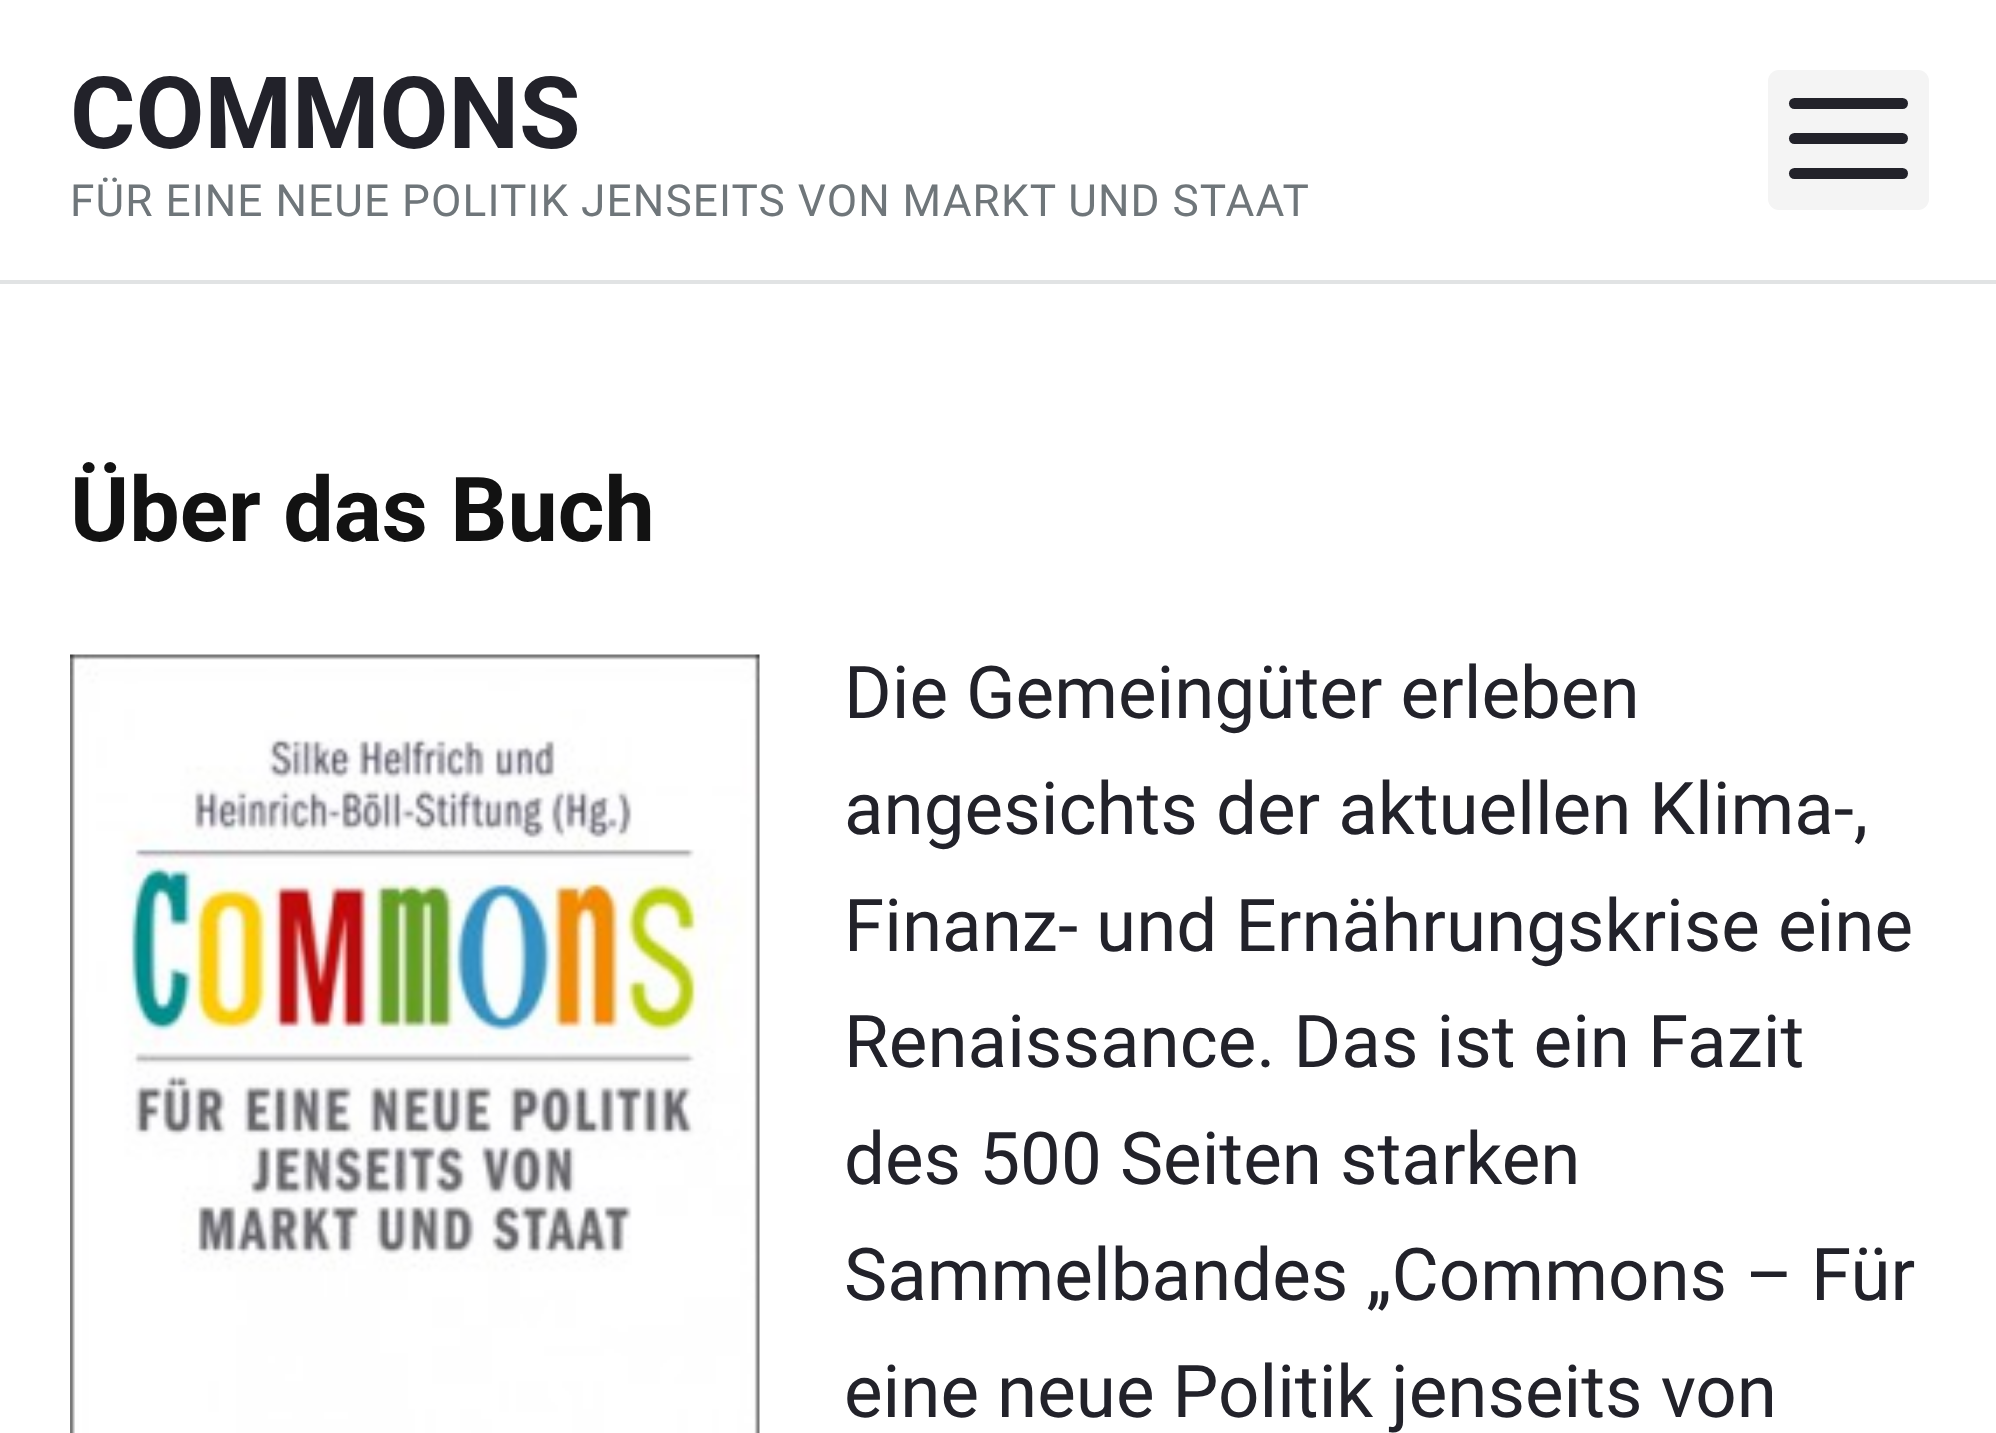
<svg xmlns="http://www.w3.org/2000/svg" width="1996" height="1433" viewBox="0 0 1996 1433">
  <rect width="100%" height="100%" fill="#ffffff"/>
  <text x="70" y="148" font-family="Roboto" font-size="100" font-weight="bold" fill="#22222a">COMMONS</text>
  <text x="70" y="216" word-spacing="-0.25" font-family="Roboto" font-size="44.2" letter-spacing="1.1" fill="#6f767a">FÜR EINE NEUE POLITIK JENSEITS VON MARKT UND STAAT</text>
  <rect x="1768" y="70" width="161" height="140" rx="11" fill="#f4f4f4"/>
  <rect x="1789" y="133" width="119" height="11" rx="5.5" fill="#22222a"/>
  <rect x="1789" y="98" width="119" height="11" rx="5.5" fill="#22222a"/>
  <rect x="1789" y="168" width="119" height="11" rx="5.5" fill="#22222a"/>
  <rect x="0" y="280" width="1996" height="4" fill="#e1e3e4"/>
  <text x="70" y="541" font-family="Roboto" font-size="89.75" font-weight="bold" fill="#121212">Über das Buch</text>
  <image x="70" y="654" width="690" height="779" href="img1.png"/>
  <text x="844" y="718" font-family="Roboto" font-size="72.75" fill="#22222a">Die Gemeingüter erleben</text>
  <text x="844" y="834" font-family="Roboto" font-size="72.75" fill="#22222a">angesichts der aktuellen Klima-,</text>
  <text x="844" y="951" font-family="Roboto" font-size="72.75" fill="#22222a">Finanz- und Ernährungskrise eine</text>
  <text x="844" y="1067" font-family="Roboto" font-size="72.75" fill="#22222a">Renaissance. Das ist ein Fazit</text>
  <text x="844" y="1184" font-family="Roboto" font-size="72.75" fill="#22222a">des 500 Seiten starken</text>
  <text x="844" y="1300" font-family="Roboto" font-size="72.75" fill="#22222a">Sammelbandes „Commons – Für</text>
  <text x="844" y="1417" font-family="Roboto" font-size="72.75" fill="#22222a">eine neue Politik jenseits von</text>
</svg>
